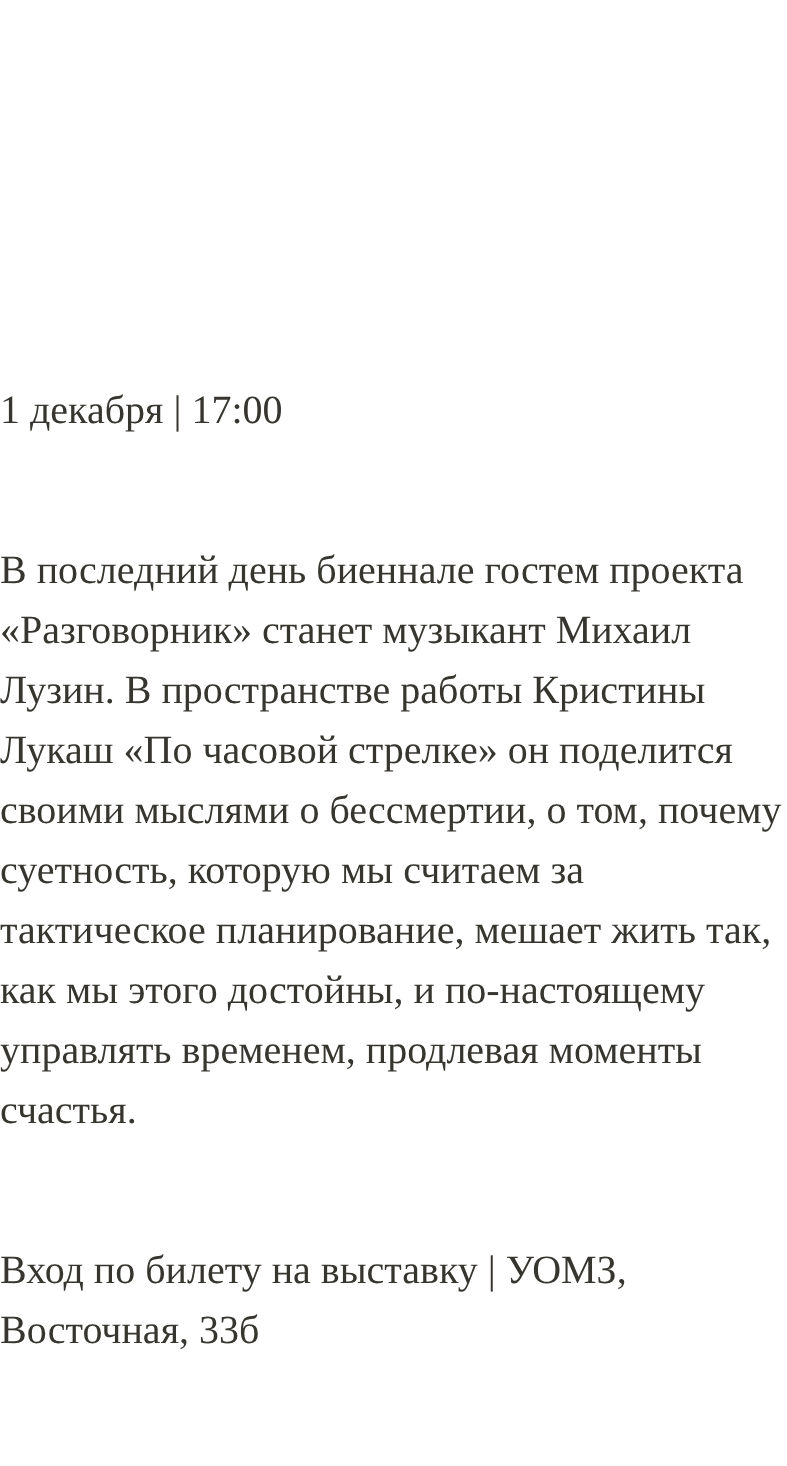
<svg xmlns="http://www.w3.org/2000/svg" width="787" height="1466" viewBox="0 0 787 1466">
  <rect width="100%" height="100%" fill="#ffffff"/>
  <text x="0" y="423" font-family="Liberation Serif" font-size="40" fill="#37352f">1 декабря | 17:00</text>
  <text x="0" y="583" font-family="Liberation Serif" font-size="40" fill="#37352f">В последний день биеннале гостем проекта</text>
  <text x="0" y="643" font-family="Liberation Serif" font-size="40" fill="#37352f">«Разговорник» станет музыкант Михаил</text>
  <text x="0" y="703" font-family="Liberation Serif" font-size="40" fill="#37352f">Лузин. В пространстве работы Кристины</text>
  <text x="0" y="763" font-family="Liberation Serif" font-size="40" fill="#37352f">Лукаш «По часовой стрелке» он поделится</text>
  <text x="0" y="823" font-family="Liberation Serif" font-size="40" fill="#37352f">своими мыслями о бессмертии, о том, почему</text>
  <text x="0" y="883" font-family="Liberation Serif" font-size="40" fill="#37352f">суетность, которую мы считаем за</text>
  <text x="0" y="943" font-family="Liberation Serif" font-size="40" fill="#37352f">тактическое планирование, мешает жить так,</text>
  <text x="0" y="1003" font-family="Liberation Serif" font-size="40" fill="#37352f">как мы этого достойны, и по-настоящему</text>
  <text x="0" y="1063" font-family="Liberation Serif" font-size="40" fill="#37352f">управлять временем, продлевая моменты</text>
  <text x="0" y="1123" font-family="Liberation Serif" font-size="40" fill="#37352f">счастья.</text>
  <text x="0" y="1283" font-family="Liberation Serif" font-size="40" fill="#37352f">Вход по билету на выставку | УОМЗ,</text>
  <text x="0" y="1343" font-family="Liberation Serif" font-size="40" fill="#37352f">Восточная, 33б</text>
</svg>
